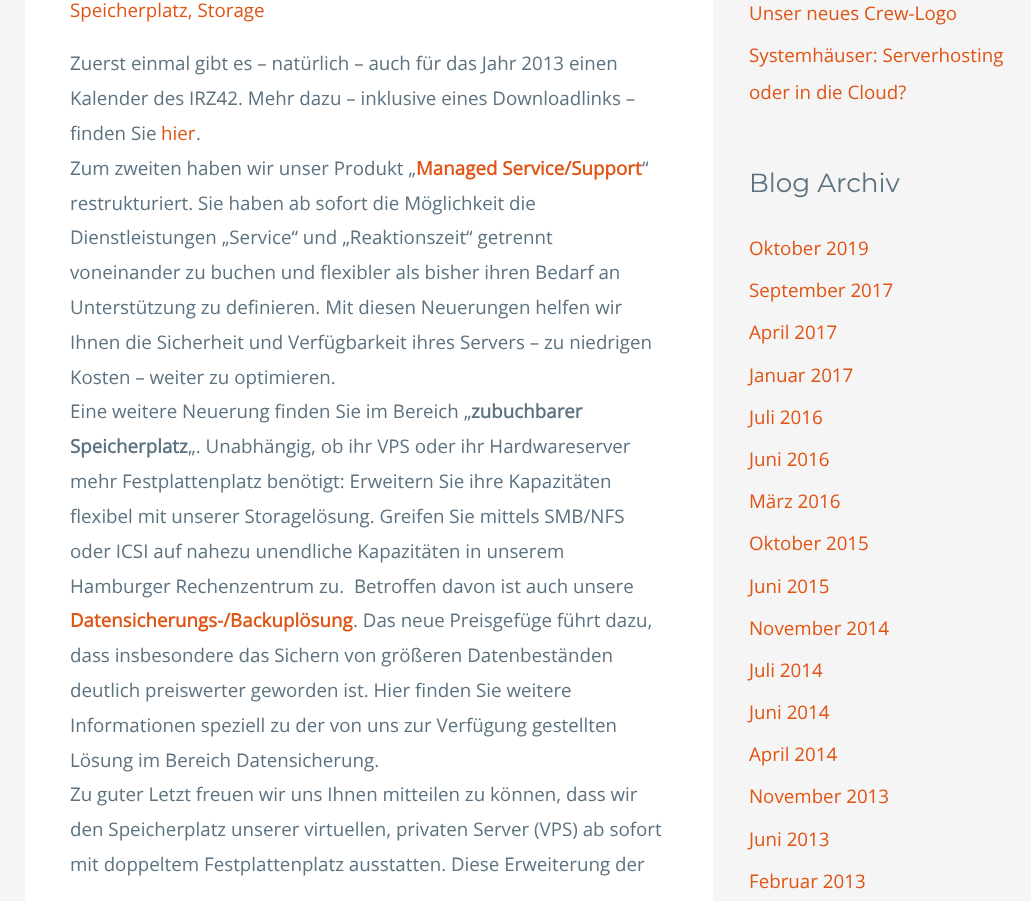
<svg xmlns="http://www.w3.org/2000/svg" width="1031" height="901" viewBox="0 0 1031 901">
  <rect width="100%" height="100%" fill="#f5f5f5"/>
  <rect x="25" y="0" width="688" height="901" fill="#ffffff"/>
  <text x="70" y="17" font-family="Open Sans" font-size="18.75" fill="#e05414">Speicherplatz, Storage</text>
  <text x="70" y="70" font-family="Open Sans" font-size="18.75" fill="#5d7280">Zuerst einmal gibt es – natürlich – auch für das Jahr 2013 einen</text>
  <text x="70" y="105" font-family="Open Sans" font-size="18.75" fill="#5d7280">Kalender des IRZ42. Mehr dazu – inklusive eines Downloadlinks –</text>
  <text x="70" y="140" font-family="Open Sans" font-size="18.75" fill="#5d7280">finden Sie</text>
  <text x="161" y="140" font-family="Open Sans" font-size="18.75" fill="#e05414">hier</text>
  <text x="196" y="140" font-family="Open Sans" font-size="18.75" fill="#5d7280">.</text>
  <text x="70" y="175" font-family="Open Sans" font-size="18.75" fill="#5d7280">Zum zweiten haben wir unser Produkt „</text>
  <text x="416" y="175" font-family="Open Sans" font-size="18.75" font-weight="bold" fill="#e05414">Managed Service/Support</text>
  <text x="642" y="175" font-family="Open Sans" font-size="18.75" fill="#5d7280">“</text>
  <text x="70" y="210" font-family="Open Sans" font-size="18.75" fill="#5d7280">restrukturiert. Sie haben ab sofort die Möglichkeit die</text>
  <text x="70" y="244" font-family="Open Sans" font-size="18.75" fill="#5d7280">Dienstleistungen „Service“ und „Reaktionszeit“ getrennt</text>
  <text x="70" y="279" font-family="Open Sans" font-size="18.75" fill="#5d7280">voneinander zu buchen und flexibler als bisher ihren Bedarf an</text>
  <text x="70" y="314" font-family="Open Sans" font-size="18.75" fill="#5d7280">Unterstützung zu definieren. Mit diesen Neuerungen helfen wir</text>
  <text x="70" y="349" font-family="Open Sans" font-size="18.75" fill="#5d7280">Ihnen die Sicherheit und Verfügbarkeit ihres Servers – zu niedrigen</text>
  <text x="70" y="384" font-family="Open Sans" font-size="18.75" fill="#5d7280">Kosten – weiter zu optimieren.</text>
  <text x="70" y="418" font-family="Open Sans" font-size="18.75" fill="#5d7280">Eine weitere Neuerung finden Sie im Bereich „</text>
  <text x="471" y="418" font-family="Open Sans" font-size="18.75" font-weight="bold" fill="#5d7280">zubuchbarer</text>
  <text x="70" y="453" font-family="Open Sans" font-size="18.75" font-weight="bold" fill="#5d7280">Speicherplatz</text>
  <text x="188" y="453" font-family="Open Sans" font-size="18.75" fill="#5d7280">„. Unabhängig, ob ihr VPS oder ihr Hardwareserver</text>
  <text x="70" y="488" font-family="Open Sans" font-size="18.75" fill="#5d7280">mehr Festplattenplatz benötigt: Erweitern Sie ihre Kapazitäten</text>
  <text x="70" y="523" font-family="Open Sans" font-size="18.75" fill="#5d7280">flexibel mit unserer Storagelösung. Greifen Sie mittels SMB/NFS</text>
  <text x="70" y="558" font-family="Open Sans" font-size="18.75" fill="#5d7280">oder ICSI auf nahezu unendliche Kapazitäten in unserem</text>
  <text x="70" y="593" font-family="Open Sans" font-size="18.75" fill="#5d7280" xml:space="preserve">Hamburger Rechenzentrum zu.  Betroffen davon ist auch unsere</text>
  <text x="70" y="627" font-family="Open Sans" font-size="18.75" font-weight="bold" fill="#e05414">Datensicherungs-/Backuplösung</text>
  <text x="353" y="627" font-family="Open Sans" font-size="18.75" fill="#5d7280">. Das neue Preisgefüge führt dazu,</text>
  <text x="70" y="662" font-family="Open Sans" font-size="18.75" fill="#5d7280">dass insbesondere das Sichern von größeren Datenbeständen</text>
  <text x="70" y="697" font-family="Open Sans" font-size="18.75" fill="#5d7280">deutlich preiswerter geworden ist. Hier finden Sie weitere</text>
  <text x="70" y="732" font-family="Open Sans" font-size="18.75" fill="#5d7280">Informationen speziell zu der von uns zur Verfügung gestellten</text>
  <text x="70" y="767" font-family="Open Sans" font-size="18.75" fill="#5d7280">Lösung im Bereich Datensicherung.</text>
  <text x="70" y="801" font-family="Open Sans" font-size="18.75" fill="#5d7280">Zu guter Letzt freuen wir uns Ihnen mitteilen zu können, dass wir</text>
  <text x="70" y="836" font-family="Open Sans" font-size="18.75" fill="#5d7280">den Speicherplatz unserer virtuellen, privaten Server (VPS) ab sofort</text>
  <text x="70" y="871" font-family="Open Sans" font-size="18.75" fill="#5d7280">mit doppeltem Festplattenplatz ausstatten. Diese Erweiterung der</text>
  <text x="749" y="20" font-family="Open Sans" font-size="18.75" fill="#e05414">Unser neues Crew-Logo</text>
  <text x="749" y="62" font-family="Open Sans" font-size="18.75" fill="#e05414">Systemhäuser: Serverhosting</text>
  <text x="749" y="99" font-family="Open Sans" font-size="18.75" fill="#e05414">oder in die Cloud?</text>
  <text x="749" y="192" font-family="Montserrat" font-size="26.25" fill="#5d7280">Blog Archiv</text>
  <text x="749" y="255" font-family="Open Sans" font-size="18.75" fill="#e05414">Oktober 2019</text>
  <text x="749" y="297" font-family="Open Sans" font-size="18.75" fill="#e05414">September 2017</text>
  <text x="749" y="339" font-family="Open Sans" font-size="18.75" fill="#e05414">April 2017</text>
  <text x="749" y="382" font-family="Open Sans" font-size="18.75" fill="#e05414">Januar 2017</text>
  <text x="749" y="424" font-family="Open Sans" font-size="18.75" fill="#e05414">Juli 2016</text>
  <text x="749" y="466" font-family="Open Sans" font-size="18.75" fill="#e05414">Juni 2016</text>
  <text x="749" y="508" font-family="Open Sans" font-size="18.75" fill="#e05414">März 2016</text>
  <text x="749" y="550" font-family="Open Sans" font-size="18.75" fill="#e05414">Oktober 2015</text>
  <text x="749" y="593" font-family="Open Sans" font-size="18.75" fill="#e05414">Juni 2015</text>
  <text x="749" y="635" font-family="Open Sans" font-size="18.75" fill="#e05414">November 2014</text>
  <text x="749" y="677" font-family="Open Sans" font-size="18.75" fill="#e05414">Juli 2014</text>
  <text x="749" y="719" font-family="Open Sans" font-size="18.75" fill="#e05414">Juni 2014</text>
  <text x="749" y="761" font-family="Open Sans" font-size="18.75" fill="#e05414">April 2014</text>
  <text x="749" y="803" font-family="Open Sans" font-size="18.75" fill="#e05414">November 2013</text>
  <text x="749" y="846" font-family="Open Sans" font-size="18.75" fill="#e05414">Juni 2013</text>
  <text x="749" y="888" font-family="Open Sans" font-size="18.75" fill="#e05414">Februar 2013</text>
</svg>
